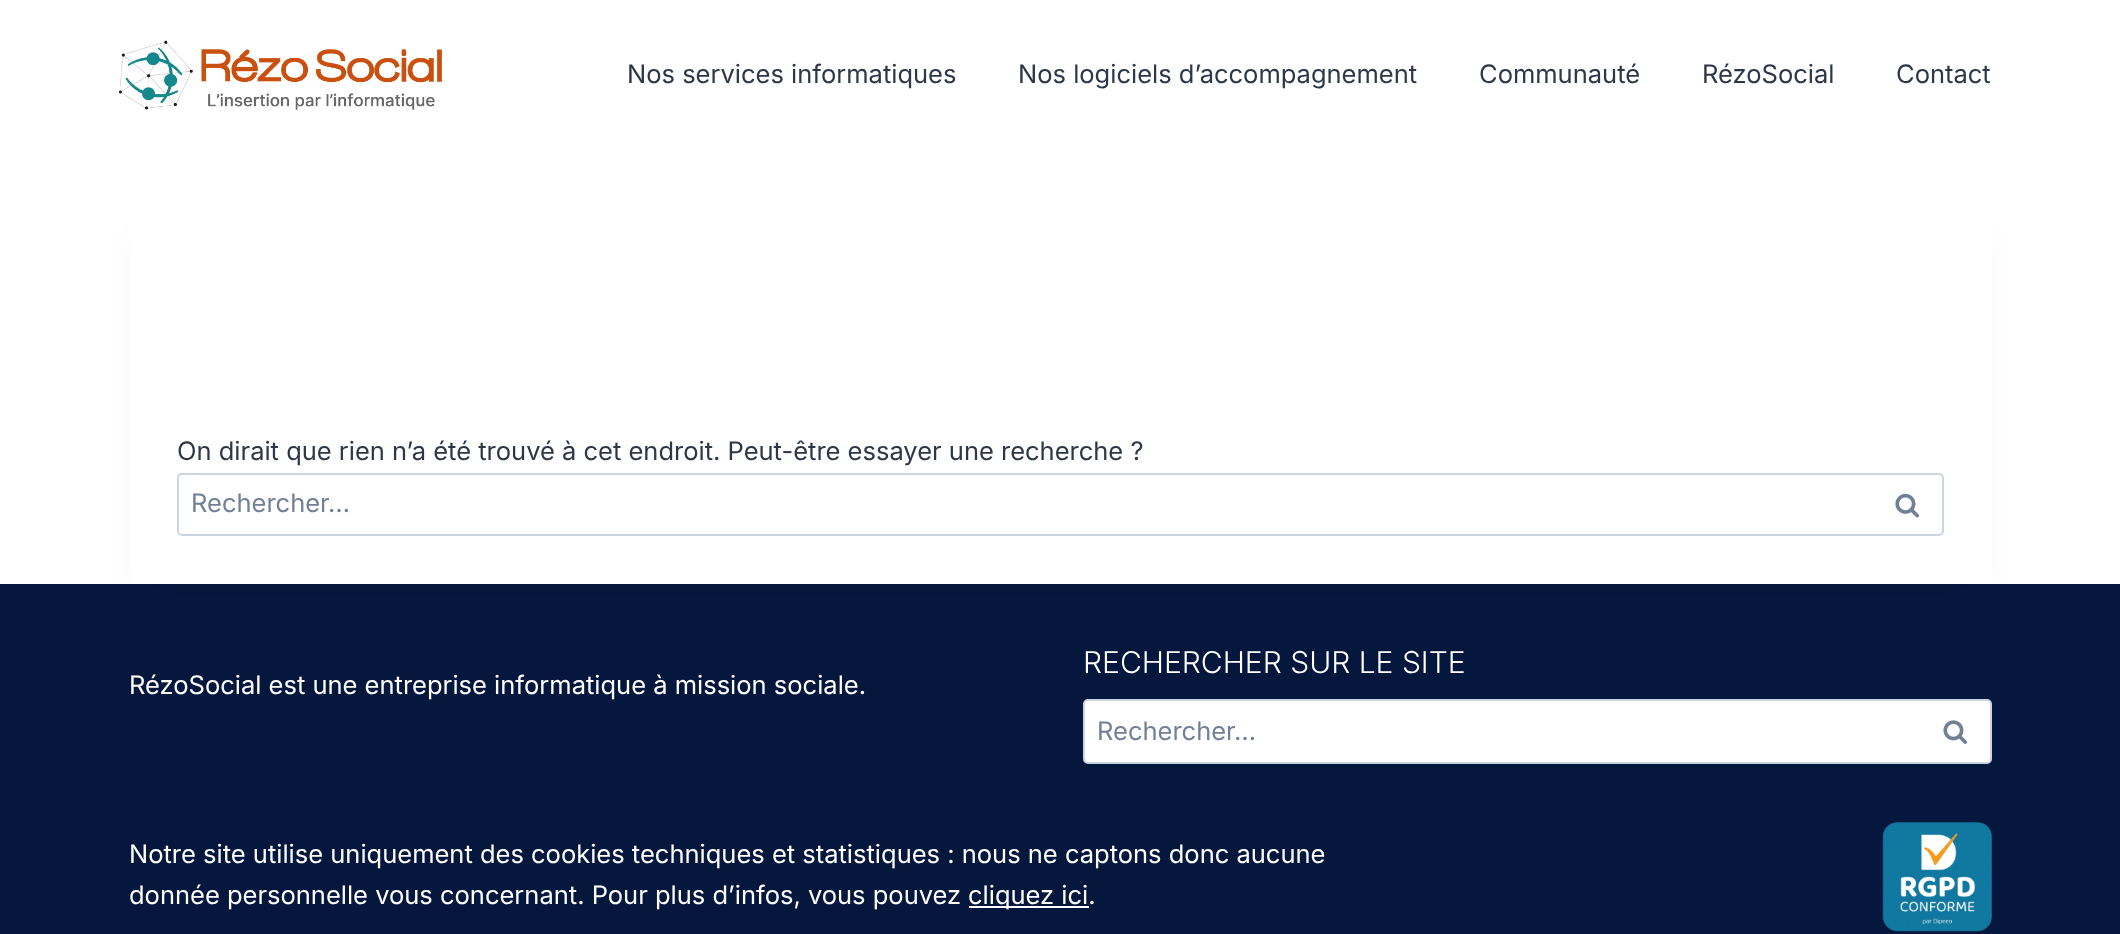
<svg xmlns="http://www.w3.org/2000/svg" width="2120" height="934" viewBox="0 0 2120 934">
  <defs>
    <filter id="blur1" x="-50%" y="-200%" width="200%" height="500%"><feGaussianBlur stdDeviation="19"/></filter>
  </defs>
  <rect width="100%" height="100%" fill="#ffffff"/>
  <image x="119" y="40" width="323" height="70" href="img1.png"/>
  <text x="627" y="83" font-family="Inter" font-size="25.5" fill="#2d3748">Nos services informatiques</text>
  <text x="1018" y="83" font-family="Inter" font-size="25.5" fill="#2d3748">Nos logiciels d’accompagnement</text>
  <text x="1479" y="83" font-family="Inter" font-size="25.5" fill="#2d3748">Communauté</text>
  <text x="1702" y="83" font-family="Inter" font-size="25.5" fill="#2d3748">RézoSocial</text>
  <text x="1896" y="83" font-family="Inter" font-size="25.5" fill="#2d3748">Contact</text>
  <rect x="0" y="584" width="2120" height="350" fill="#05173d"/>
  <rect x="144" y="236" width="1833" height="355" fill="#000000" fill-opacity="0.05" filter="url(#blur1)"/>
  <rect x="129" y="198" width="1863" height="386" rx="6" fill="#ffffff"/>
  <text x="177" y="460" font-family="Inter" font-size="25.5" fill="#2d3748">On dirait que rien n’a été trouvé à cet endroit. Peut-être essayer une recherche ?</text>
  <rect x="178" y="474" width="1765" height="61" rx="4" fill="none" stroke="#cbd5e0" stroke-width="2"/>
  <text x="191" y="512" font-family="Inter" font-size="25.5" fill="#718096">Rechercher…</text>
  <image x="1895" y="493" width="25" height="25" href="img2.png"/>
  <text x="129" y="694" font-family="Inter" font-size="25.5" fill="#ffffff">RézoSocial est une entreprise informatique à mission sociale.</text>
  <text x="1083" y="673" font-family="Inter" font-size="30" font-weight="300" fill="#ffffff">RECHERCHER SUR LE SITE</text>
  <rect x="1084" y="700" width="907" height="63" rx="4" fill="#ffffff" stroke="#cbd5e0" stroke-width="2"/>
  <text x="1097" y="740" font-family="Inter" font-size="25.5" fill="#718096">Rechercher…</text>
  <image x="1943" y="720" width="25" height="24" href="img3.png"/>
  <text x="129" y="863" font-family="Inter" font-size="25.5" fill="#ffffff">Notre site utilise uniquement des cookies techniques et statistiques : nous ne captons donc aucune</text>
  <text x="129" y="904" font-family="Inter" font-size="25.5" fill="#ffffff">donnée personnelle vous concernant. Pour plus d’infos, vous pouvez</text>
  <rect x="969" y="906" width="120" height="2" fill="#ffffff"/>
  <text x="968" y="904" font-family="Inter" font-size="25.5" fill="#ffffff">cliquez ici.</text>
  <image x="1882" y="822" width="110" height="110" href="img4.png"/>
</svg>
